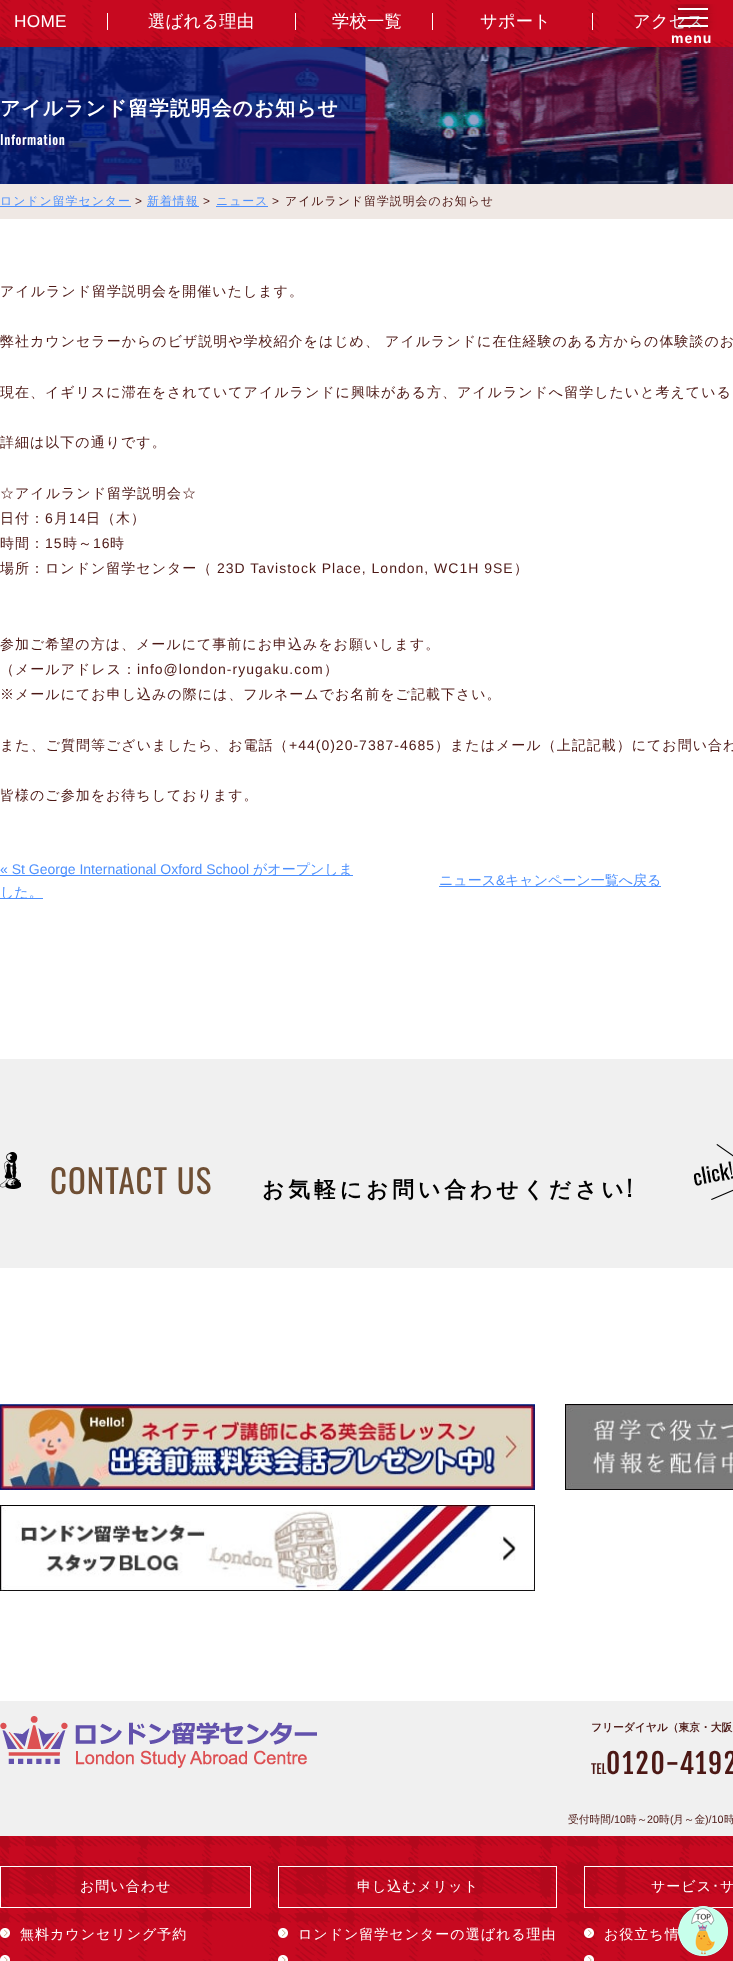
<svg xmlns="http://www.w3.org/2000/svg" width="733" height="1961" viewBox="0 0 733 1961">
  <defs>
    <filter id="blur1" x="-50%" y="-200%" width="200%" height="500%"><feGaussianBlur stdDeviation="4"/></filter>
  </defs>
  <rect width="100%" height="100%" fill="#ffffff"/>
  <rect x="0" y="0" width="733" height="47" fill="#c70920"/>
  <image x="0" y="0" width="733" height="47" href="img1.png"/>
  <rect x="107" y="13" width="1" height="17" fill="#ffffff"/>
  <text x="14" y="27" font-family="Liberation Sans" font-size="17.25" letter-spacing="0.25" fill="#ffffff">HOME</text>
  <rect x="295" y="13" width="1" height="17" fill="#ffffff"/>
  <text x="148" y="27" font-family="WenQuanYi Zen Hei" font-size="17.25" font-weight="500" letter-spacing="0.25" fill="#ffffff">選ばれる理由</text>
  <rect x="432" y="13" width="1" height="17" fill="#ffffff"/>
  <text x="332" y="27" font-family="WenQuanYi Zen Hei" font-size="17.25" font-weight="500" letter-spacing="0.25" fill="#ffffff">学校一覧</text>
  <rect x="592" y="13" width="1" height="17" fill="#ffffff"/>
  <text x="480" y="27" font-family="WenQuanYi Zen Hei" font-size="17.25" font-weight="500" letter-spacing="0.25" fill="#ffffff">サポート</text>
  <text x="633" y="27" font-family="WenQuanYi Zen Hei" font-size="17.25" font-weight="500" letter-spacing="0.25" fill="#ffffff">アクセス</text>
  <image x="0" y="47" width="733" height="137" href="img2.png"/>
  <text x="0" y="115" font-family="WenQuanYi Zen Hei" font-size="19.9" font-weight="bold" letter-spacing="1" fill="#ffffff">アイルランド留学説明会のお知らせ</text>
  <text x="0" y="145" font-family="Oswald" font-size="13" font-weight="bold" letter-spacing="1" fill="#ffffff">Information</text>
  <rect x="0" y="184" width="733" height="35" fill="#efe8e4"/>
  <rect x="0" y="206" width="131" height="1" fill="#4d90fe"/>
  <text x="0" y="205" font-family="WenQuanYi Zen Hei" font-size="11.9" font-weight="500" letter-spacing="1" fill="#4d90fe">ロンドン留学センター</text>
  <text x="135" y="205" font-family="Liberation Sans" font-size="11.9" letter-spacing="1" fill="#4c1815">&gt;</text>
  <rect x="147" y="206" width="52" height="1" fill="#4d90fe"/>
  <text x="147" y="205" font-family="WenQuanYi Zen Hei" font-size="11.9" font-weight="500" letter-spacing="1" fill="#4d90fe">新着情報</text>
  <text x="203" y="205" font-family="Liberation Sans" font-size="11.9" letter-spacing="1" fill="#4c1815">&gt;</text>
  <text x="216" y="205" font-family="WenQuanYi Zen Hei" font-size="11.9" font-weight="500" letter-spacing="1" fill="#4d90fe">ニュース</text>
  <rect x="216" y="206" width="52" height="1" fill="#4d90fe"/>
  <text x="272" y="205" font-family="Liberation Sans" font-size="11.9" letter-spacing="1" fill="#4c1815">&gt;</text>
  <text x="285" y="205" font-family="WenQuanYi Zen Hei" font-size="11.9" font-weight="500" letter-spacing="1" fill="#4c1815">アイルランド留学説明会のお知らせ</text>
  <text x="0" y="296" font-family="WenQuanYi Zen Hei" font-size="14" font-weight="500" letter-spacing="1" fill="#4c1815">アイルランド留学説明会を開催いたします。</text>
  <text x="0" y="346" font-family="WenQuanYi Zen Hei" font-size="14" font-weight="500" letter-spacing="1" fill="#4c1815">弊社カウンセラーからのビザ説明や学校紹介をはじめ、 アイルランドに在住経験のある方からの体験談のお</text>
  <text x="0" y="397" font-family="WenQuanYi Zen Hei" font-size="14" font-weight="500" letter-spacing="1" fill="#4c1815">現在、イギリスに滞在をされていてアイルランドに興味がある方、アイルランドへ留学したいと考えている</text>
  <text x="0" y="447" font-family="WenQuanYi Zen Hei" font-size="14" font-weight="500" letter-spacing="1" fill="#4c1815">詳細は以下の通りです。</text>
  <text x="0" y="498" font-family="WenQuanYi Zen Hei" font-size="14" font-weight="500" letter-spacing="1" fill="#4c1815">☆アイルランド留学説明会☆</text>
  <text x="0" y="523" font-family="WenQuanYi Zen Hei" font-size="14" font-weight="500" letter-spacing="1" fill="#4c1815">日付：</text>
  <text x="45" y="523" font-family="Liberation Sans" font-size="14" letter-spacing="1" fill="#4c1815">6</text>
  <text x="54" y="523" font-family="WenQuanYi Zen Hei" font-size="14" font-weight="500" letter-spacing="1" fill="#4c1815">月</text>
  <text x="69" y="523" font-family="Liberation Sans" font-size="14" letter-spacing="1" fill="#4c1815">14</text>
  <text x="86" y="523" font-family="WenQuanYi Zen Hei" font-size="14" font-weight="500" letter-spacing="1" fill="#4c1815">日（木）</text>
  <text x="0" y="548" font-family="WenQuanYi Zen Hei" font-size="14" font-weight="500" letter-spacing="1" fill="#4c1815">時間：</text>
  <text x="45" y="548" font-family="Liberation Sans" font-size="14" letter-spacing="1" fill="#4c1815">15</text>
  <text x="63" y="548" font-family="WenQuanYi Zen Hei" font-size="14" font-weight="500" letter-spacing="1" fill="#4c1815">時～</text>
  <text x="93" y="548" font-family="Liberation Sans" font-size="14" letter-spacing="1" fill="#4c1815">16</text>
  <text x="110" y="548" font-family="WenQuanYi Zen Hei" font-size="14" font-weight="500" letter-spacing="1" fill="#4c1815">時</text>
  <text x="0" y="573" font-family="WenQuanYi Zen Hei" font-size="14" font-weight="500" letter-spacing="1" fill="#4c1815">場所：ロンドン留学センター（</text>
  <text x="217" y="573" font-family="Liberation Sans" font-size="14" letter-spacing="1" fill="#4c1815">23D Tavistock Place, London, WC1H 9SE</text>
  <text x="514" y="573" font-family="WenQuanYi Zen Hei" font-size="14" font-weight="500" letter-spacing="1" fill="#4c1815">）</text>
  <text x="0" y="649" font-family="WenQuanYi Zen Hei" font-size="14" font-weight="500" letter-spacing="1" fill="#4c1815">参加ご希望の方は、メールにて事前にお申込みをお願いします。</text>
  <text x="0" y="674" font-family="WenQuanYi Zen Hei" font-size="14" font-weight="500" letter-spacing="1" fill="#4c1815">（メールアドレス：</text>
  <text x="137" y="674" font-family="Liberation Sans" font-size="14" letter-spacing="1" fill="#4c1815">info@london-ryugaku.com</text>
  <text x="324" y="674" font-family="WenQuanYi Zen Hei" font-size="14" font-weight="500" letter-spacing="1" fill="#4c1815">）</text>
  <text x="0" y="699" font-family="WenQuanYi Zen Hei" font-size="14" font-weight="500" letter-spacing="1" fill="#4c1815">※メールにてお申し込みの際には、フルネームでお名前をご記載下さい。</text>
  <text x="0" y="750" font-family="WenQuanYi Zen Hei" font-size="14" font-weight="500" letter-spacing="1" fill="#4c1815">また、ご質問等ございましたら、お電話（</text>
  <text x="289" y="750" font-family="Liberation Sans" font-size="14" letter-spacing="1" fill="#4c1815">+44(0)20-7387-4685</text>
  <text x="435" y="750" font-family="WenQuanYi Zen Hei" font-size="14" font-weight="500" letter-spacing="1" fill="#4c1815">）またはメール（上記記載）にてお問い合わ</text>
  <text x="0" y="800" font-family="WenQuanYi Zen Hei" font-size="14" font-weight="500" letter-spacing="1" fill="#4c1815">皆様のご参加をお待ちしております。</text>
  <rect x="0" y="875" width="353" height="1" fill="#4d90fe"/>
  <text x="0" y="874" font-family="Liberation Sans" font-size="14" fill="#4d90fe">« St George International Oxford School</text>
  <text x="253" y="874" font-family="WenQuanYi Zen Hei" font-size="14" font-weight="500" fill="#4d90fe">がオープンしま</text>
  <rect x="0" y="898" width="43" height="1" fill="#4d90fe"/>
  <text x="0" y="897" font-family="WenQuanYi Zen Hei" font-size="14" font-weight="500" fill="#4d90fe">した。</text>
  <text x="439" y="885" font-family="WenQuanYi Zen Hei" font-size="14" font-weight="500" fill="#4d90fe">ニュース</text>
  <rect x="439" y="886" width="222" height="1" fill="#4d90fe"/>
  <text x="496" y="885" font-family="Liberation Sans" font-size="14" fill="#4d90fe">&amp;</text>
  <text x="505" y="885" font-family="WenQuanYi Zen Hei" font-size="14" font-weight="500" fill="#4d90fe">キャンペーン一覧へ戻る</text>
  <rect x="0" y="1059" width="733" height="209" fill="#f0f0f0"/>
  <image x="0" y="1152" width="21" height="37" href="img3.png"/>
  <text x="50" y="1194" font-family="Oswald" font-size="33" letter-spacing="1" fill="#6f4f34">CONTACT US</text>
  <text x="262" y="1197" font-family="WenQuanYi Zen Hei" font-size="21.75" font-weight="bold" letter-spacing="4" fill="#000000">お気軽にお問い合わせください</text>
  <text x="627" y="1197" font-family="Oswald" font-size="21.75" font-weight="bold" letter-spacing="4" fill="#000000">!</text>
  <image x="693" y="1144" width="40" height="56" href="img4.png"/>
  <image x="0" y="1404" width="535" height="86" href="img5.png"/>
  <image x="565" y="1404" width="168" height="86" href="img6.png"/>
  <image x="0" y="1505" width="535" height="86" href="img7.png"/>
  <rect x="0" y="1701" width="733" height="135" fill="#f0f0f0"/>
  <image x="0" y="1716" width="317" height="52" href="img8.png"/>
  <text x="591" y="1731" font-family="WenQuanYi Zen Hei" font-size="10.75" font-weight="bold" fill="#4c1815">フリーダイヤル（東京・大阪</text>
  <text x="591" y="1774" font-family="Fjalla One" font-size="13" fill="#4c1815">TEL</text>
  <text x="606" y="1774" font-family="Fjalla One" font-size="27.5" letter-spacing="2" fill="#4c1815">0120-4192</text>
  <text x="568" y="1823" font-family="WenQuanYi Zen Hei" font-size="10.75" font-weight="500" fill="#4c1815">受付時間</text>
  <text x="611" y="1823" font-family="Liberation Sans" font-size="10.75" fill="#4c1815">/10</text>
  <text x="626" y="1823" font-family="WenQuanYi Zen Hei" font-size="10.75" font-weight="500" fill="#4c1815">時～</text>
  <text x="647" y="1823" font-family="Liberation Sans" font-size="10.75" fill="#4c1815">20</text>
  <text x="659" y="1823" font-family="WenQuanYi Zen Hei" font-size="10.75" font-weight="500" fill="#4c1815">時</text>
  <text x="670" y="1823" font-family="Liberation Sans" font-size="10.75" fill="#4c1815">(</text>
  <text x="673" y="1823" font-family="WenQuanYi Zen Hei" font-size="10.75" font-weight="500" fill="#4c1815">月～金</text>
  <text x="705" y="1823" font-family="Liberation Sans" font-size="10.75" fill="#4c1815">)/10</text>
  <text x="724" y="1823" font-family="WenQuanYi Zen Hei" font-size="10.75" font-weight="500" fill="#4c1815">時</text>
  <rect x="0" y="1836" width="733" height="125" fill="#c70920"/>
  <image x="0" y="1836" width="733" height="125" href="img9.png"/>
  <rect x="0.5" y="1866.5" width="250" height="41" fill="none" stroke="#ffffff"/>
  <text x="80" y="1891" font-family="WenQuanYi Zen Hei" font-size="14" font-weight="500" letter-spacing="1" fill="#ffffff">お問い合わせ</text>
  <image x="0" y="1928" width="10" height="10" href="img10.png"/>
  <text x="20" y="1939" font-family="WenQuanYi Zen Hei" font-size="14" font-weight="500" letter-spacing="1" fill="#ffffff">無料カウンセリング予約</text>
  <image x="0" y="1955" width="10" height="6" href="img11.png"/>
  <rect x="278.5" y="1866.5" width="278" height="41" fill="none" stroke="#ffffff"/>
  <text x="357" y="1891" font-family="WenQuanYi Zen Hei" font-size="14" font-weight="500" letter-spacing="1" fill="#ffffff">申し込むメリット</text>
  <image x="278" y="1928" width="10" height="10" href="img12.png"/>
  <text x="298" y="1939" font-family="WenQuanYi Zen Hei" font-size="14" font-weight="500" letter-spacing="1" fill="#ffffff">ロンドン留学センターの選ばれる理由</text>
  <image x="278" y="1955" width="10" height="6" href="img13.png"/>
  <rect x="584.5" y="1866.5" width="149" height="41" fill="none" stroke="#ffffff"/>
  <text x="651" y="1891" font-family="WenQuanYi Zen Hei" font-size="14" font-weight="500" letter-spacing="1" fill="#ffffff">サービス</text>
  <text x="712" y="1891" font-family="IPAPGothic" font-size="14" letter-spacing="1" fill="#ffffff">･</text>
  <text x="720" y="1891" font-family="WenQuanYi Zen Hei" font-size="14" font-weight="500" letter-spacing="1" fill="#ffffff">サ</text>
  <image x="584" y="1928" width="10" height="10" href="img14.png"/>
  <text x="604" y="1939" font-family="WenQuanYi Zen Hei" font-size="14" font-weight="500" letter-spacing="1" fill="#ffffff">お役立ち情</text>
  <image x="584" y="1955" width="10" height="6" href="img15.png"/>
  <rect x="678" y="8" width="30" height="2" fill="#161616" filter="url(#blur1)"/>
  <rect x="678" y="8" width="30" height="2" fill="#ffffff"/>
  <rect x="678" y="17" width="30" height="2" fill="#161616" filter="url(#blur1)"/>
  <rect x="678" y="17" width="30" height="2" fill="#ffffff"/>
  <rect x="678" y="25" width="30" height="2" fill="#161616" filter="url(#blur1)"/>
  <rect x="678" y="25" width="30" height="2" fill="#ffffff"/>
  <text x="671" y="43" font-family="Liberation Sans" font-size="14" font-weight="bold" letter-spacing="1" fill="#ffffff">menu</text>
  <image x="678" y="1906" width="50" height="50" href="img16.png"/>
</svg>
